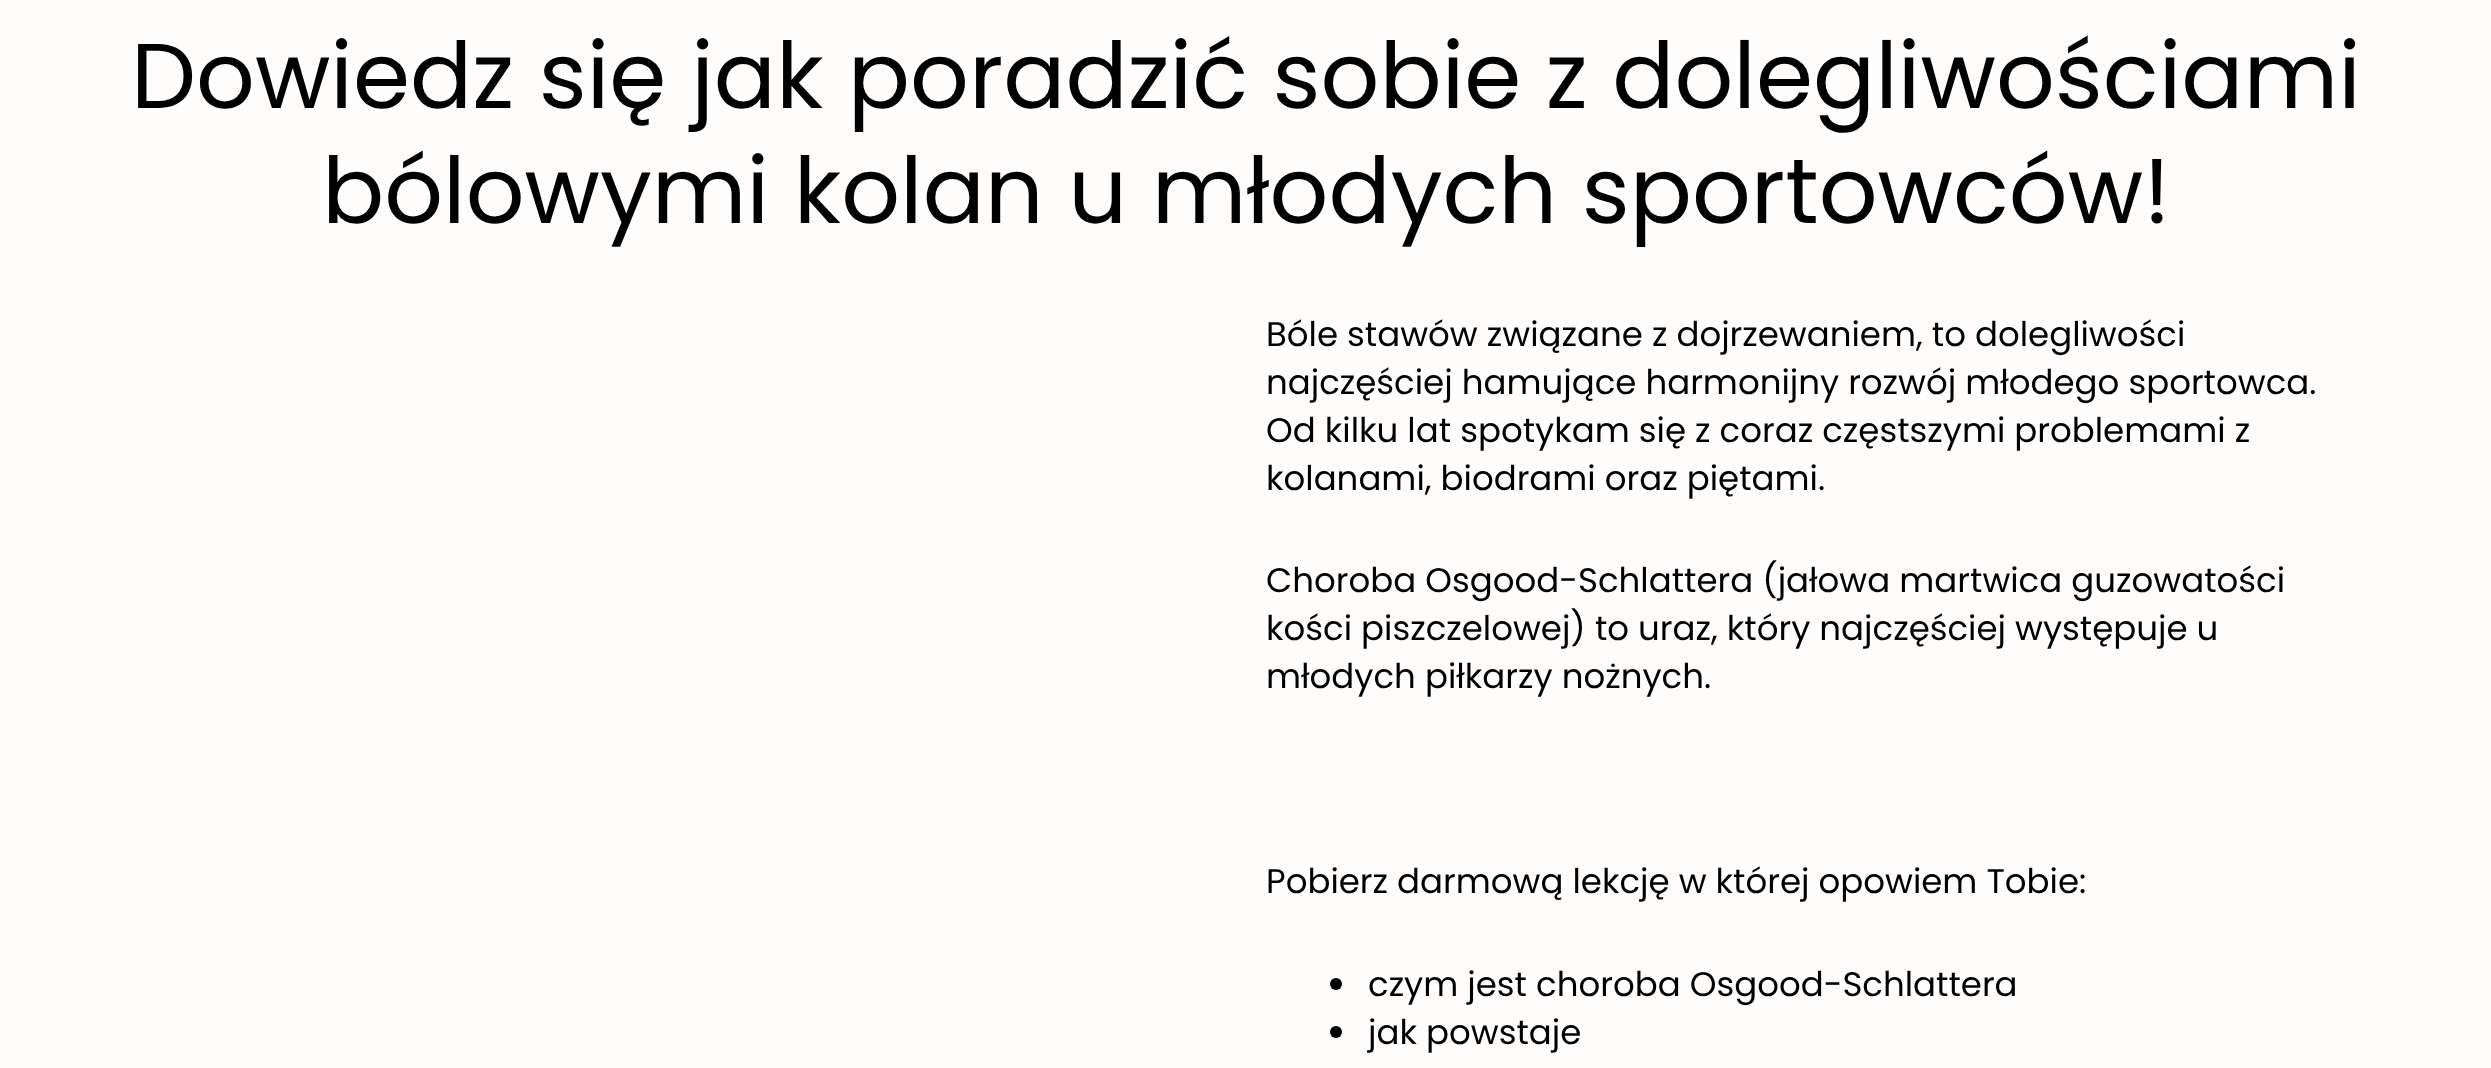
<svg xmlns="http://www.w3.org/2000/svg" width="2491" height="1068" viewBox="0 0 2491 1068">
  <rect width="100%" height="100%" fill="#fffcfc"/>
  <text x="131" y="108" font-family="Poppins" font-size="92" fill="#000000">Dowiedz się jak poradzić sobie z dolegliwościami</text>
  <text x="322" y="223" font-family="Poppins" font-size="92" fill="#000000">bólowymi kolan u młodych sportowców!</text>
  <text x="1266" y="346" font-family="Poppins" font-size="34" fill="#000000">Bóle stawów związane z dojrzewaniem, to dolegliwości</text>
  <text x="1266" y="394" font-family="Poppins" font-size="34" fill="#000000">najczęściej hamujące harmonijny rozwój młodego sportowca.</text>
  <text x="1266" y="442" font-family="Poppins" font-size="34" fill="#000000">Od kilku lat spotykam się z coraz częstszymi problemami z</text>
  <text x="1266" y="490" font-family="Poppins" font-size="34" fill="#000000">kolanami, biodrami oraz piętami.</text>
  <text x="1266" y="592" font-family="Poppins" font-size="34" fill="#000000">Choroba Osgood-Schlattera (jałowa martwica guzowatości</text>
  <text x="1266" y="640" font-family="Poppins" font-size="34" fill="#000000">kości piszczelowej) to uraz, który najczęściej występuje u</text>
  <text x="1266" y="688" font-family="Poppins" font-size="34" fill="#000000">młodych piłkarzy nożnych.</text>
  <text x="1266" y="893" font-family="Poppins" font-size="34" fill="#000000">Pobierz darmową lekcję w której opowiem Tobie:</text>
  <circle cx="1336" cy="984" r="6" fill="#000000"/>
  <text x="1368" y="996" font-family="Poppins" font-size="34" fill="#000000">czym jest choroba Osgood-Schlattera</text>
  <circle cx="1336" cy="1032" r="6" fill="#000000"/>
  <text x="1368" y="1044" font-family="Poppins" font-size="34" fill="#000000">jak powstaje</text>
</svg>
